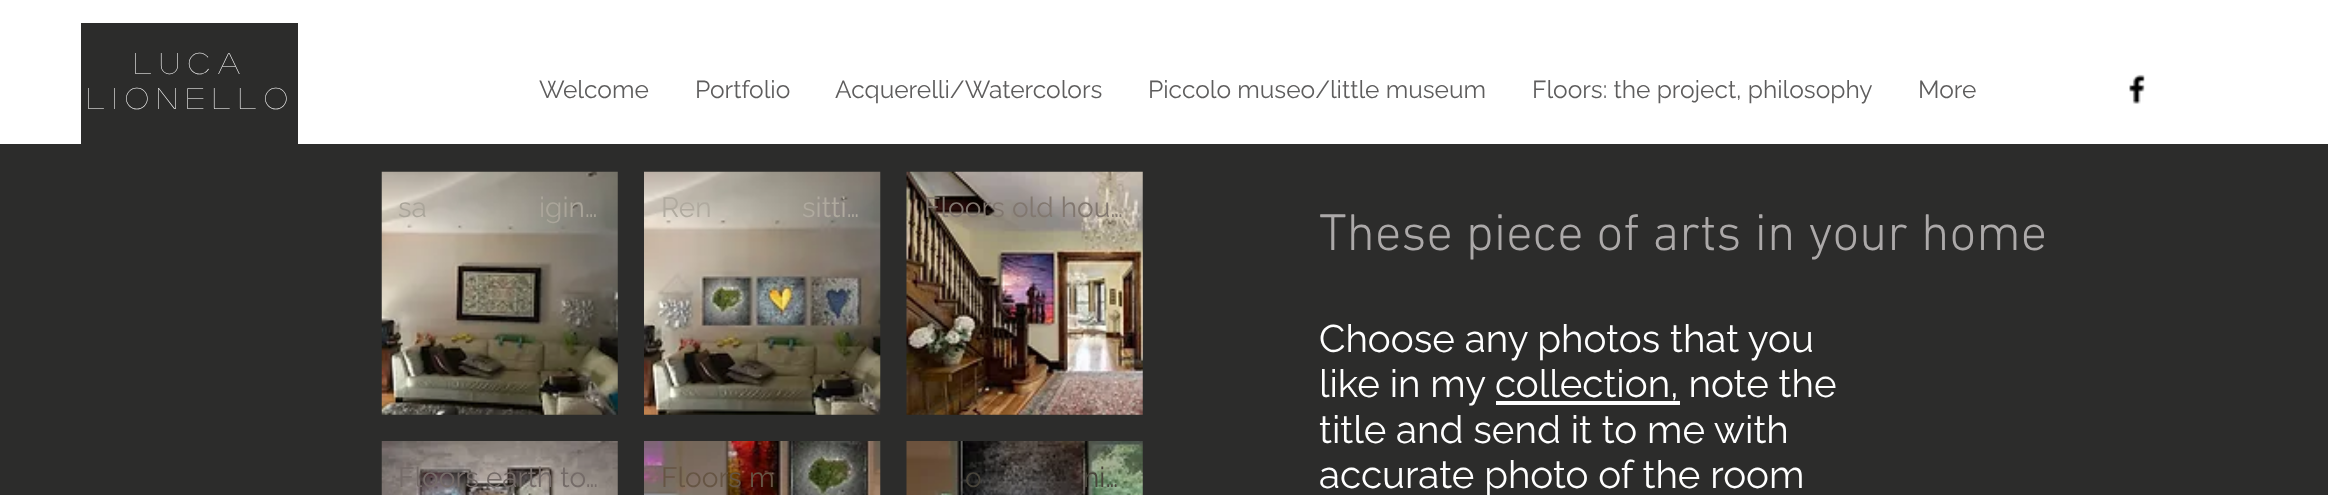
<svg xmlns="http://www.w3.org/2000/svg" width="2328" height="495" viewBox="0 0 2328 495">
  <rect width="100%" height="100%" fill="#2c2c2b"/>
  <rect x="0" y="0" width="2328" height="144" fill="#ffffff"/>
  <rect x="81" y="23" width="217" height="121" fill="#2c2c2b"/>
  <text x="134" y="74" font-family="'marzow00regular'" font-size="29.75" letter-spacing="9" fill="#ffffff">Luca</text>
  <text x="87" y="109" font-family="'marzow00regular'" font-size="29.75" letter-spacing="9" fill="#ffffff">Lionello</text>
  <text x="539" y="98" font-family="Raleway" font-size="24.5" fill="#5e5d5d">Welcome</text>
  <text x="695" y="98" font-family="Raleway" font-size="24.5" fill="#5e5d5d">Portfolio</text>
  <text x="835" y="98" font-family="Raleway" font-size="24.5" fill="#5e5d5d">Acquerelli/Watercolors</text>
  <text x="1148" y="98" font-family="Raleway" font-size="24.5" fill="#5e5d5d">Piccolo museo/little museum</text>
  <text x="1532" y="98" font-family="Raleway" font-size="24.5" fill="#5e5d5d">Floors: the project, philosophy</text>
  <text x="1918" y="98" font-family="Raleway" font-size="24.5" fill="#5e5d5d">More</text>
  <image x="2129" y="74" width="16" height="30" href="img1.png"/>
  <image x="381" y="171" width="237" height="244" href="img2.png"/>
  <text x="398" y="217" font-family="Raleway" font-size="28" fill="#aaa59a">sa</text>
  <text x="539" y="217" font-family="Raleway" font-size="28" fill="#aaa59a">igin…</text>
  <image x="644" y="171" width="237" height="244" href="img3.png"/>
  <text x="661" y="217" font-family="Raleway" font-size="28" fill="#b0aa9f">Ren</text>
  <text x="802" y="217" font-family="Raleway" font-size="28" fill="#b0aa9f">sitti…</text>
  <image x="906" y="171" width="237" height="244" href="img4.png"/>
  <text x="924" y="217" font-family="Raleway" font-size="28" fill="#81776f">Floors old hou…</text>
  <image x="381" y="441" width="237" height="54" href="img5.png"/>
  <text x="398" y="487" font-family="Raleway" font-size="28" fill="#746b68">Floors earth to…</text>
  <image x="644" y="441" width="237" height="54" href="img6.png"/>
  <text x="661" y="487" font-family="Raleway" font-size="28" fill="#665544">Floors m</text>
  <image x="906" y="441" width="237" height="54" href="img7.png"/>
  <text x="965" y="487" font-family="Raleway" font-size="28" fill="#48443b">o</text>
  <text x="1083" y="487" font-family="Raleway" font-size="28" fill="#48443b">ni…</text>
  <text x="1319" y="250" font-family="'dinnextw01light'" font-size="52.5" font-weight="300" fill="#aca9a9">These piece of arts in your home</text>
  <text x="1319" y="352" font-family="Raleway" font-size="38.5" fill="#ffffff">Choose any photos that you</text>
  <text x="1319" y="397" font-family="Raleway" font-size="38.5" fill="#ffffff">like in my collection, note the</text>
  <rect x="1496" y="401" width="184" height="4" fill="#ffffff"/>
  <text x="1319" y="443" font-family="Raleway" font-size="38.5" fill="#ffffff">title and send it to me with</text>
  <text x="1319" y="488" font-family="Raleway" font-size="38.5" fill="#ffffff">accurate photo of the room</text>
</svg>
